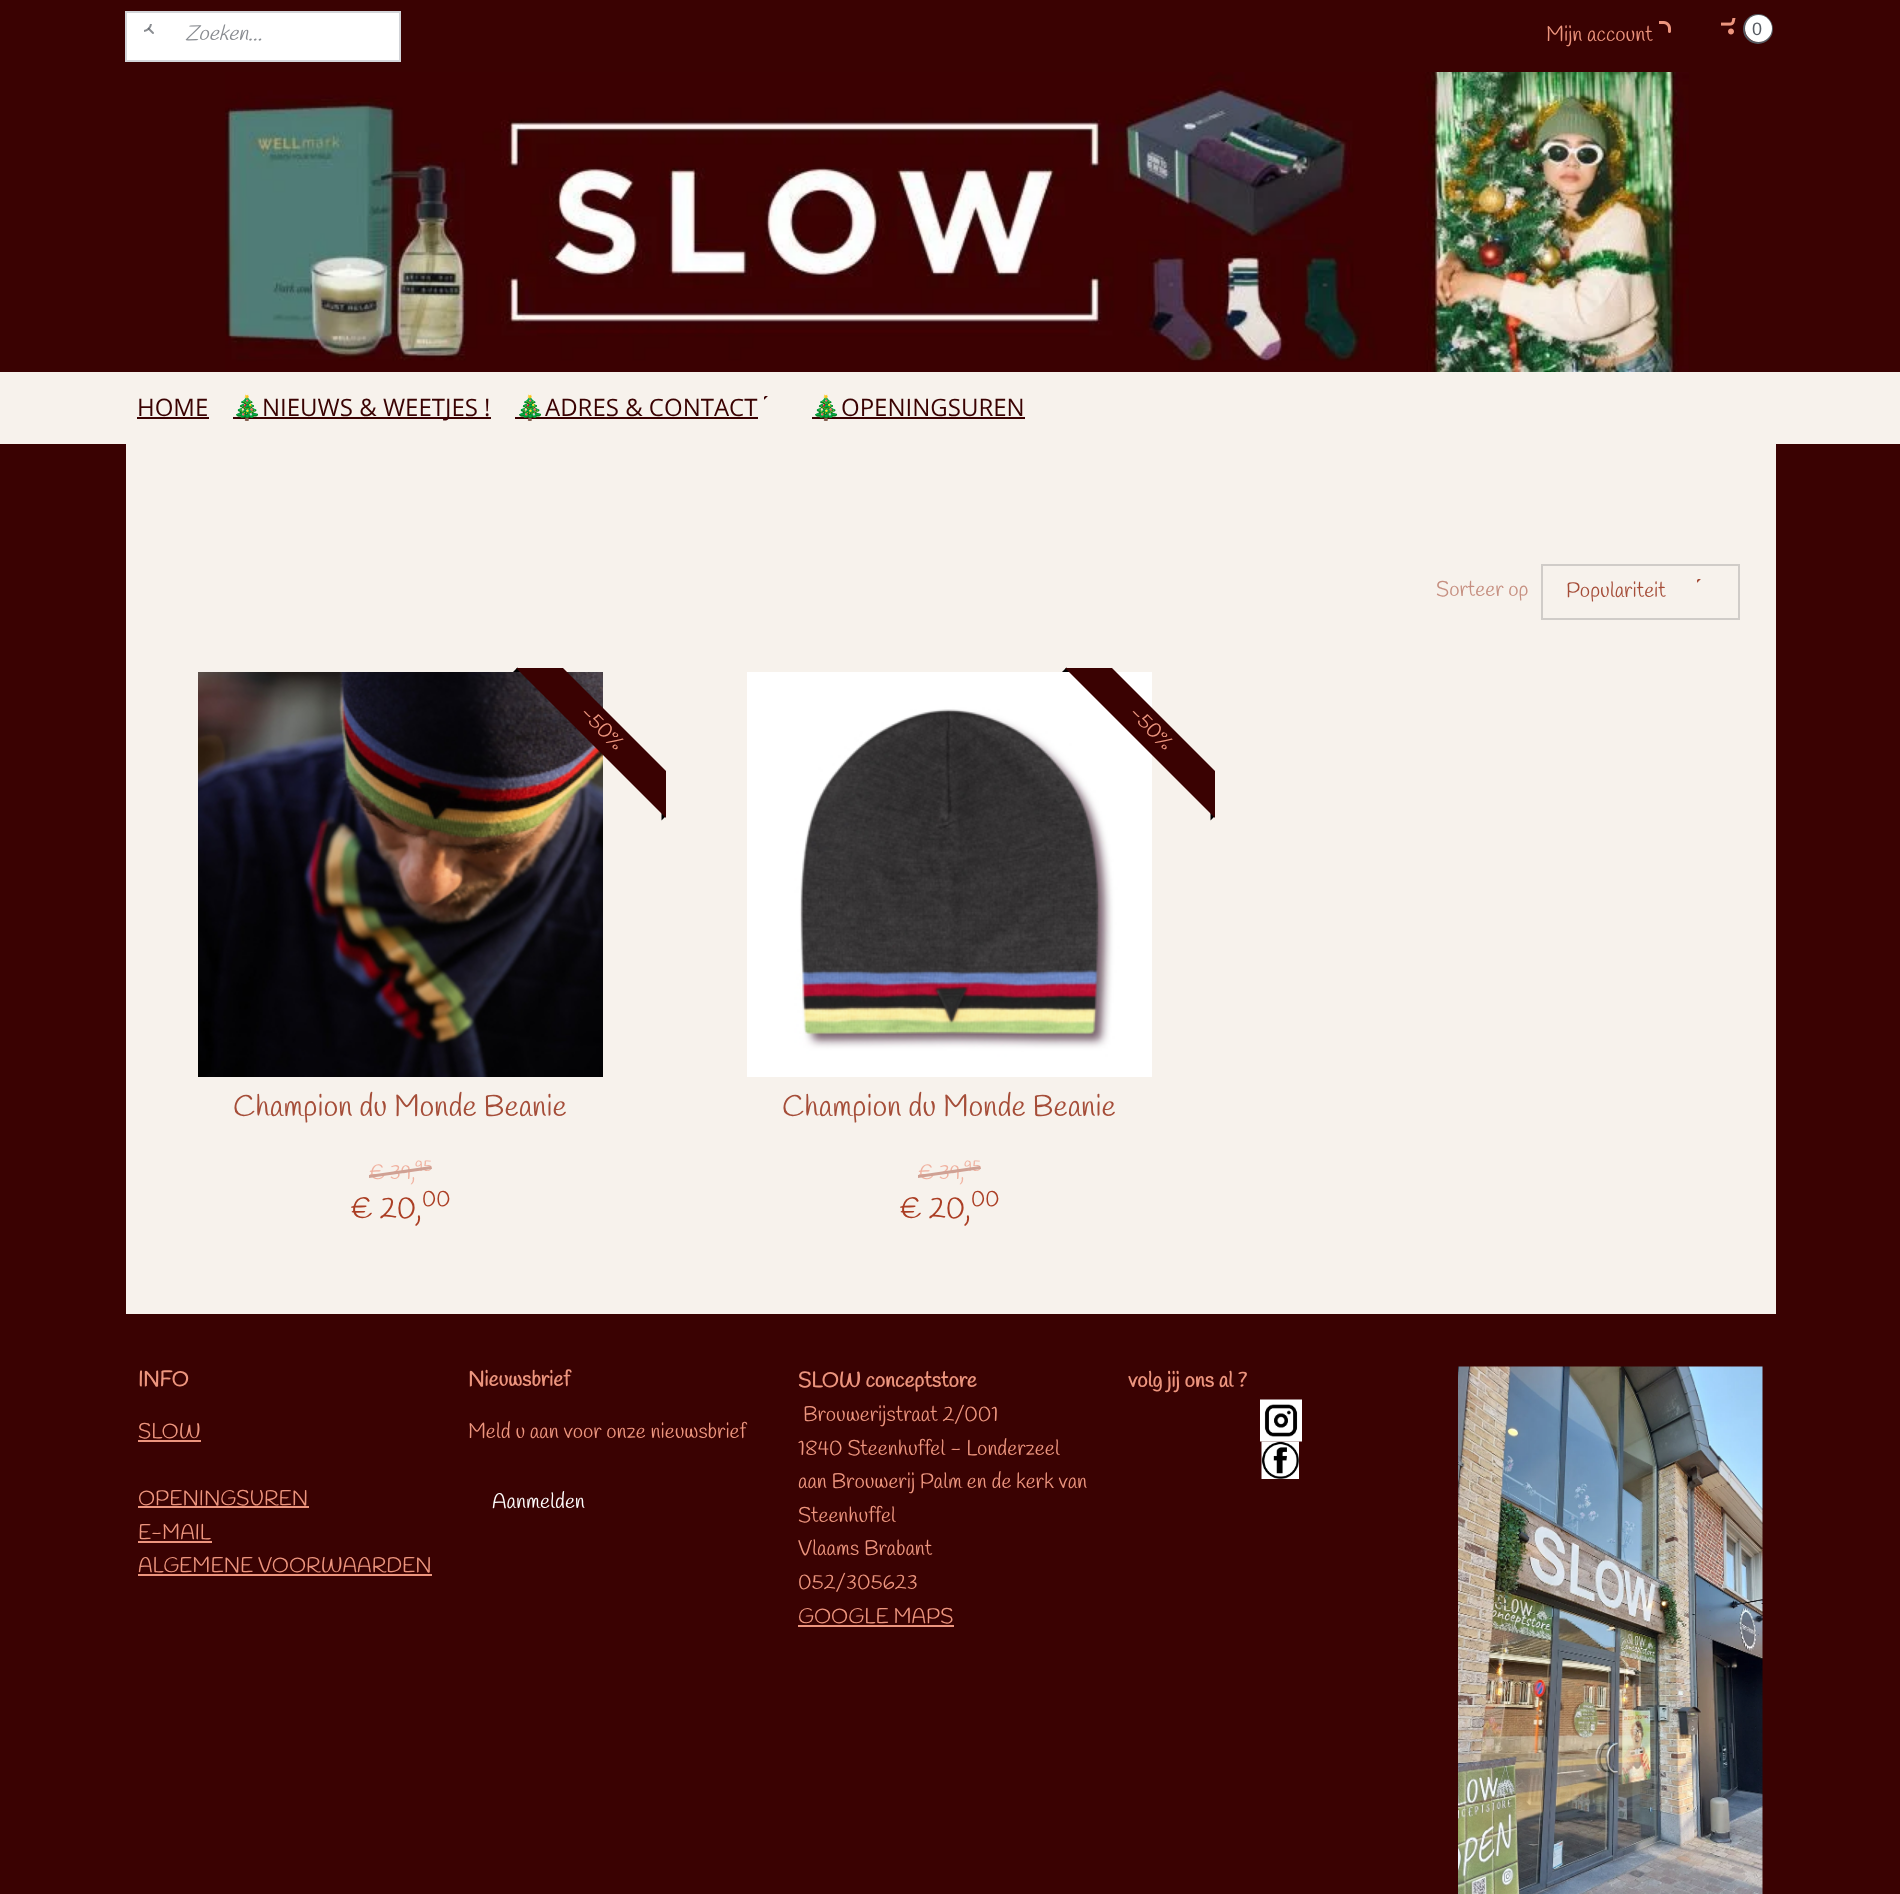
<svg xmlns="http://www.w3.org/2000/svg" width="1900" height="1894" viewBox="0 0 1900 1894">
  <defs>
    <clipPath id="clip1"><rect x="486" y="668" width="180" height="180"/></clipPath>
    <clipPath id="clip2"><rect x="1035" y="668" width="180" height="180"/></clipPath>
  </defs>
  <rect width="100%" height="100%" fill="#3a0202"/>
  <rect x="126" y="12" width="274" height="49" fill="#ffffff" stroke="#d3d5d9" stroke-width="2"/>
  <image x="144" y="24" width="10" height="10" href="img1.png"/>
  <text x="185" y="40" font-family="Handlee" font-size="21" font-style="italic" fill="#898c91">Zoeken...</text>
  <text x="1546" y="41" font-family="Handlee" font-size="21" fill="#ed957e">Mijn account</text>
  <image x="1659" y="21" width="12" height="12" href="img2.png"/>
  <image x="1721" y="18" width="15" height="17" href="img3.png"/>
  <circle cx="1758" cy="29" r="14" fill="none" stroke="#575b62" stroke-width="2"/>
  <circle cx="1758.5" cy="28.5" r="13.5" fill="#ffffff"/>
  <text x="1752" y="35" font-family="Liberation Sans" font-size="18" fill="#575b62">0</text>
  <image x="225" y="72" width="1464" height="300" href="img4.png"/>
  <rect x="0" y="372" width="1900" height="72" fill="#f7f2ec"/>
  <text x="137" y="416" font-family="Open Sans" font-size="24" fill="#3a0202">HOME</text>
  <rect x="137" y="417" width="72" height="2" fill="#3a0202"/>
  <rect x="233" y="417" width="258" height="2" fill="#3a0202"/>
  <text x="232" y="416" font-family="Noto Color Emoji" font-size="24" fill="#3a0202">🎄</text>
  <text x="262" y="416" font-family="Open Sans" font-size="24" fill="#3a0202">NIEUWS &amp; WEETJES !</text>
  <rect x="515" y="417" width="243" height="2" fill="#3a0202"/>
  <text x="515" y="416" font-family="Noto Color Emoji" font-size="24" fill="#3a0202">🎄</text>
  <text x="545" y="416" font-family="Open Sans" font-size="24" fill="#3a0202">ADRES &amp; CONTACT</text>
  <image x="764" y="396" width="4" height="4" href="img5.png"/>
  <rect x="812" y="417" width="213" height="2" fill="#3a0202"/>
  <text x="811" y="416" font-family="Noto Color Emoji" font-size="24" fill="#3a0202">🎄</text>
  <text x="841" y="416" font-family="Open Sans" font-size="24" fill="#3a0202">OPENINGSUREN</text>
  <rect x="126" y="444" width="1650" height="870" fill="#f7f2ec"/>
  <text x="1436" y="596" font-family="Handlee" font-size="21" fill="#c68f80">Sorteer op</text>
  <rect x="1542" y="565" width="197" height="54" fill="none" stroke="#d0ccc8" stroke-width="2"/>
  <text x="1566" y="597" font-family="Handlee" font-size="21" fill="#a54d38">Populariteit</text>
  <image x="1697" y="579" width="4" height="4" href="img6.png"/>
  <image x="198" y="672" width="405" height="405" href="img7.png"/>
  <path d="M522 672H513L517.5 667.5Z" fill="#000000"/>
  <path d="M661.5 820.5V811.5L666 816Z" fill="#000000"/>
  <g clip-path="url(#clip1)">
    <path d="M533 638L692 797L668 820L509 661Z" fill="#3a0202"/>
  </g>
  <text x="579" y="714" transform="rotate(45 579 714)" font-family="Handlee" font-size="21" fill="#ed957e">-50%</text>
  <text x="233" y="1116" font-family="Handlee" font-size="30" fill="#a54d38">Champion du Monde Beanie</text>
  <text x="369" y="1179" font-family="Handlee" font-size="21" fill="#f0b19f">€ 39,</text>
  <text x="415" y="1171" font-family="Handlee" font-size="16" fill="#f0b19f">95</text>
  <path d="M369 1175L431 1166L432 1169L369 1178Z" fill="#cfa194"/>
  <text x="350" y="1218" font-family="Handlee" font-size="30" fill="#ab3e24">€ 20,</text>
  <text x="422" y="1206" font-family="Handlee" font-size="22" fill="#ab3e24">00</text>
  <image x="747" y="672" width="405" height="405" href="img8.png"/>
  <path d="M1071 672H1062L1066.5 667.5Z" fill="#000000"/>
  <path d="M1210.5 820.5V811.5L1215 816Z" fill="#000000"/>
  <g clip-path="url(#clip2)">
    <path d="M1082 638L1241 797L1217 820L1058 661Z" fill="#3a0202"/>
  </g>
  <text x="1128" y="714" transform="rotate(45 1128 714)" font-family="Handlee" font-size="21" fill="#ed957e">-50%</text>
  <text x="782" y="1116" font-family="Handlee" font-size="30" fill="#a54d38">Champion du Monde Beanie</text>
  <text x="918" y="1179" font-family="Handlee" font-size="21" fill="#f0b19f">€ 39,</text>
  <text x="964" y="1171" font-family="Handlee" font-size="16" fill="#f0b19f">95</text>
  <path d="M918 1175L980 1166L981 1169L918 1178Z" fill="#cfa194"/>
  <text x="899" y="1218" font-family="Handlee" font-size="30" fill="#ab3e24">€ 20,</text>
  <text x="971" y="1206" font-family="Handlee" font-size="22" fill="#ab3e24">00</text>
  <text x="138" y="1386" font-family="Handlee" font-size="21" font-weight="bold" fill="#ed957e">INFO</text>
  <text x="138" y="1438" font-family="Handlee" font-size="21" fill="#ed957e">SLOW</text>
  <rect x="138" y="1440" width="63" height="2" fill="#ed957e"/>
  <text x="138" y="1505" font-family="Handlee" font-size="21" fill="#ed957e">OPENINGSUREN</text>
  <rect x="138" y="1506" width="171" height="2" fill="#ed957e"/>
  <text x="138" y="1539" font-family="Handlee" font-size="21" fill="#ed957e">E-MAIL</text>
  <rect x="138" y="1541" width="74" height="2" fill="#ed957e"/>
  <text x="138" y="1572" font-family="Handlee" font-size="21" fill="#ed957e">ALGEMENE VOORWAARDEN</text>
  <rect x="138" y="1574" width="294" height="2" fill="#ed957e"/>
  <text x="468" y="1386" font-family="Handlee" font-size="21" font-weight="bold" fill="#ed957e">Nieuwsbrief</text>
  <text x="468" y="1438" font-family="Handlee" font-size="21" fill="#ed957e">Meld u aan voor onze nieuwsbrief</text>
  <text x="492" y="1508" font-family="Handlee" font-size="21" fill="#ffffff">Aanmelden</text>
  <text x="798" y="1387" font-family="Handlee" font-size="21" font-weight="bold" fill="#ed957e">SLOW conceptstore</text>
  <text x="803" y="1421" font-family="Handlee" font-size="21" fill="#ed957e">Brouwerijstraat 2/001</text>
  <text x="798" y="1455" font-family="Handlee" font-size="21" fill="#ed957e">1840 Steenhuffel - Londerzeel</text>
  <text x="798" y="1488" font-family="Handlee" font-size="21" fill="#ed957e">aan Brouwerij Palm en de kerk van</text>
  <text x="798" y="1522" font-family="Handlee" font-size="21" fill="#ed957e">Steenhuffel</text>
  <text x="798" y="1555" font-family="Handlee" font-size="21" fill="#ed957e">Vlaams Brabant</text>
  <text x="798" y="1589" font-family="Handlee" font-size="21" fill="#ed957e">052/305623</text>
  <text x="798" y="1623" font-family="Handlee" font-size="21" fill="#ed957e">GOOGLE MAPS</text>
  <rect x="798" y="1625" width="156" height="2" fill="#ed957e"/>
  <text x="1128" y="1387" font-family="Handlee" font-size="21" font-weight="bold" fill="#ed957e">volg jij ons al ?</text>
  <image x="1260" y="1399" width="42" height="43" href="img9.png"/>
  <image x="1261" y="1441" width="38" height="38" href="img10.png"/>
  <image x="1458" y="1366" width="305" height="528" href="img11.png"/>
</svg>
